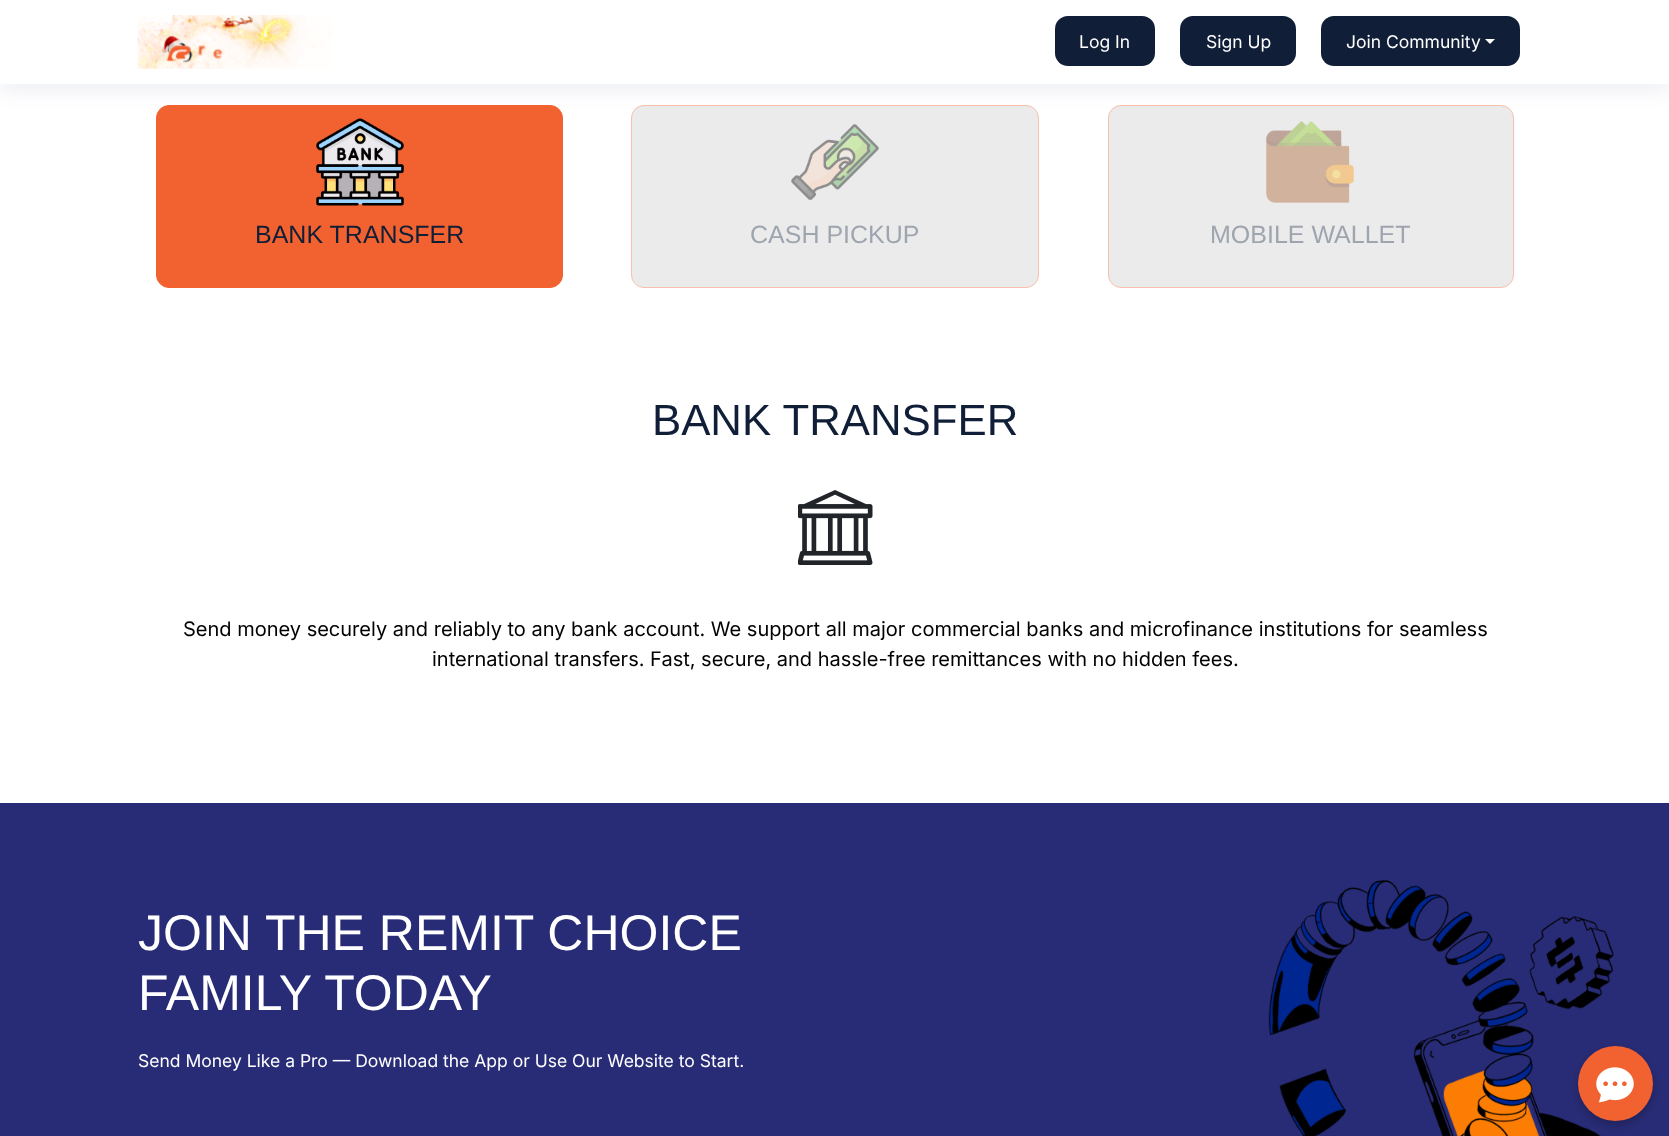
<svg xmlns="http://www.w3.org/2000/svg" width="1669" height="1136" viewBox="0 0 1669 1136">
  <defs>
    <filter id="blur1" x="-50%" y="-200%" width="200%" height="500%"><feGaussianBlur stdDeviation="12.5"/></filter>
    <filter id="blur2" x="-50%" y="-200%" width="200%" height="500%"><feGaussianBlur stdDeviation="5"/></filter>
  </defs>
  <rect width="100%" height="100%" fill="#ffffff"/>
  <rect x="156.5" y="105.5" width="406" height="182" rx="12.5" fill="#f26230" stroke="#f26230"/>
  <image x="316" y="118" width="88" height="88" href="img2.png"/>
  <rect x="631.5" y="105.5" width="407" height="182" rx="12.5" fill="#ebebeb" stroke="#fac0ac"/>
  <image x="791" y="124" width="88" height="77" href="img3.png"/>
  <rect x="1108.5" y="105.5" width="405" height="182" rx="12.5" fill="#ebebeb" stroke="#fac0ac"/>
  <image x="1266" y="121" width="88" height="82" href="img4.png"/>
  <rect x="0" y="3" width="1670" height="83" fill="#012970" fill-opacity="0.1" filter="url(#blur1)"/>
  <rect x="0" y="0" width="1669" height="84" fill="#ffffff"/>
  <image x="137" y="15" width="195" height="54" href="img1.png"/>
  <rect x="1055" y="16" width="100" height="50" rx="13" fill="#101f37"/>
  <text x="1079" y="48" font-family="Inter" font-size="17.5" fill="#ffffff">Log In</text>
  <rect x="1180" y="16" width="116" height="50" rx="13" fill="#101f37"/>
  <text x="1206" y="48" font-family="Inter" font-size="17.5" fill="#ffffff">Sign Up</text>
  <rect x="1321" y="16" width="199" height="50" rx="13" fill="#101f37"/>
  <text x="1346" y="48" font-family="Inter" font-size="17.5" fill="#ffffff">Join Community</text>
  <path d="M1485 39H1495L1490 44Z" fill="#ffffff"/>
  <text x="255" y="243" font-family="Liberation Sans" font-size="25" fill="#101f37">BANK TRANSFER</text>
  <text x="750" y="243" font-family="Liberation Sans" font-size="25" fill="#9fa5af">CASH PICKUP</text>
  <text x="1210" y="243" font-family="Liberation Sans" font-size="25" fill="#9fa5af">MOBILE WALLET</text>
  <text x="652" y="435" font-family="Liberation Sans" font-size="43.75" fill="#101f37">BANK TRANSFER</text>
  <image x="798" y="490" width="75" height="75" href="img5.png"/>
  <text x="183" y="636" font-family="Inter" font-size="20" fill="#000000">Send money securely and reliably to any bank account. We support all major commercial banks and microfinance institutions for seamless</text>
  <text x="432" y="666" font-family="Inter" font-size="20" fill="#000000">international transfers. Fast, secure, and hassle-free remittances with no hidden fees.</text>
  <rect x="0" y="803" width="1669" height="333" fill="#282c76"/>
  <text x="138" y="950" font-family="Liberation Sans" font-size="50" fill="#ffffff">JOIN THE REMIT CHOICE</text>
  <text x="138" y="1010" font-family="Liberation Sans" font-size="50" fill="#ffffff">FAMILY TODAY</text>
  <text x="138" y="1067" font-family="Inter" font-size="17.5" fill="#ffffff">Send Money Like a Pro — Download the App or Use Our Website to Start.</text>
  <image x="1268" y="879" width="346" height="257" href="img6.png"/>
  <rect x="1578" y="1050" width="75" height="75" rx="37.5" fill="#000000" fill-opacity="0.24" filter="url(#blur2)"/>
  <circle cx="1615.5" cy="1083.5" r="37.5" fill="#f26230"/>
  <image x="1596" y="1067" width="38" height="36" href="img7.png"/>
</svg>
